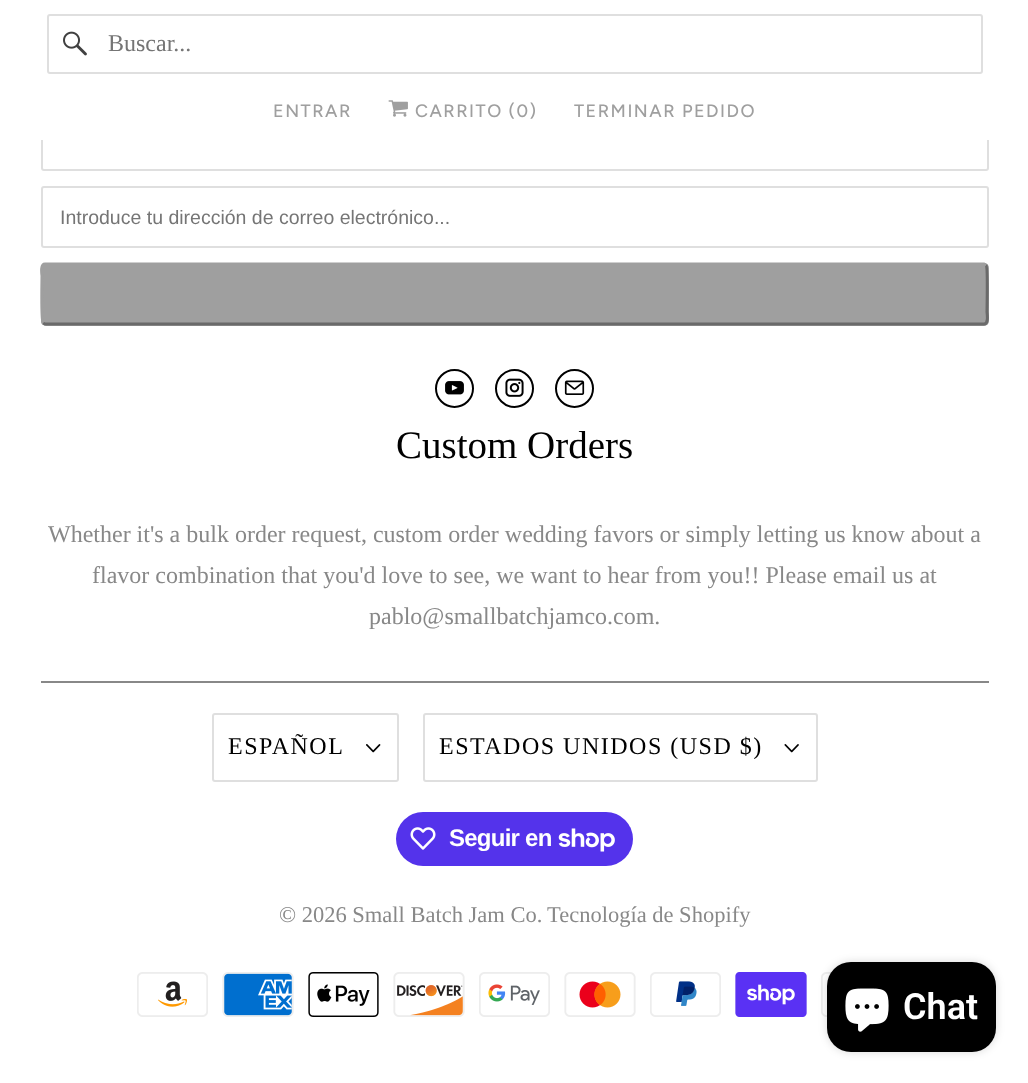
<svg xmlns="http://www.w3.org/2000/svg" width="1028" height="1083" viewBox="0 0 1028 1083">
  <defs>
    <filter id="blur1" x="-50%" y="-200%" width="200%" height="500%"><feGaussianBlur stdDeviation="4"/></filter>
  </defs>
  <rect width="100%" height="100%" fill="#ffffff"/>
  <rect x="42" y="111" width="946" height="59" rx="2" fill="none" stroke="#dfdfdf" stroke-width="2"/>
  <rect x="41" y="110" width="948" height="30" fill="#ffffff"/>
  <rect x="48" y="15" width="934" height="58" rx="2" fill="none" stroke="#dfdfdf" stroke-width="2"/>
  <image x="63" y="31" width="24" height="25" href="img1.png"/>
  <text x="108" y="51" font-family="Liberation Serif" font-size="24" fill="#757575">Buscar...</text>
  <text x="273" y="117" font-family="Figtree" font-size="18" font-weight="500" letter-spacing="1.5" fill="#9f9f9f">ENTRAR</text>
  <image x="388" y="100" width="20" height="17" href="img2.png"/>
  <text x="415" y="117" font-family="Figtree" font-size="18" font-weight="500" letter-spacing="1.5" fill="#9f9f9f">CARRITO (0)</text>
  <text x="574" y="117" font-family="Figtree" font-size="18" font-weight="500" letter-spacing="1.5" fill="#9f9f9f">TERMINAR PEDIDO</text>
  <rect x="42" y="187" width="946" height="60" rx="2" fill="none" stroke="#dfdfdf" stroke-width="2"/>
  <text x="60" y="224" font-family="Liberation Sans" font-size="19.5" fill="#757575">Introduce tu dirección de correo electrónico...</text>
  <rect x="41" y="263" width="948" height="63" rx="5" fill="#9f9f9f"/>
  <path d="M986 265C988 267 987 306 987 312C987 313 989 324 984 324H45L43 323" fill="none" stroke="#6a6a6a" stroke-width="3"/>
  <path d="M43 323C41 321 42 282 42 276C42 275 40 264 45 264H984L986 265" fill="none" stroke="#9f9f9f" stroke-width="3"/>
  <circle cx="454.5" cy="388.5" r="18.5" fill="none" stroke="#000000" stroke-width="2"/>
  <image x="445" y="381" width="19" height="14" href="img3.png"/>
  <circle cx="514.5" cy="388.5" r="18.5" fill="none" stroke="#000000" stroke-width="2"/>
  <image x="505" y="378" width="19" height="19" href="img4.png"/>
  <circle cx="574.5" cy="388.5" r="18.5" fill="none" stroke="#000000" stroke-width="2"/>
  <image x="564" y="380" width="21" height="15" href="img5.png"/>
  <text x="396" y="458" font-family="Liberation Serif" font-size="39" fill="#000000">Custom Orders</text>
  <text x="48" y="542" font-family="Liberation Serif" font-size="24" fill="#888888">Whether it's a bulk order request, custom order wedding favors or simply letting us know about a</text>
  <text x="92" y="583" font-family="Liberation Serif" font-size="24" fill="#888888">flavor combination that you'd love to see, we want to hear from you!! Please email us at</text>
  <text x="369" y="624" font-family="Liberation Serif" font-size="24" fill="#888888">pablo@smallbatchjamco.com.</text>
  <rect x="41" y="681" width="948" height="2" fill="#888888"/>
  <rect x="213" y="714" width="185" height="67" rx="2" fill="none" stroke="#dfdfdf" stroke-width="2"/>
  <text x="228" y="754" font-family="Liberation Serif" font-size="24" letter-spacing="1.5" fill="#000000">ESPAÑOL</text>
  <image x="366" y="744" width="15" height="9" href="img6.png"/>
  <rect x="424" y="714" width="393" height="67" rx="2" fill="none" stroke="#dfdfdf" stroke-width="2"/>
  <text x="439" y="754" font-family="Liberation Serif" font-size="24" letter-spacing="1.5" fill="#000000">ESTADOS UNIDOS (USD $)</text>
  <image x="784" y="744" width="15" height="9" href="img7.png"/>
  <rect x="396" y="812" width="237" height="54" rx="27" fill="#5433eb"/>
  <image x="410" y="827" width="26" height="23" href="img8.png"/>
  <text x="449" y="846" font-family="Liberation Sans" font-size="24" font-weight="bold" letter-spacing="-0.75" fill="#ffffff">Seguir en</text>
  <image x="558" y="828" width="57" height="24" href="img9.png"/>
  <text x="279" y="922" font-family="Liberation Serif" font-size="22.5" fill="#888888">© 2026 Small Batch Jam Co.</text>
  <text x="547" y="922" font-family="Liberation Serif" font-size="22.5" fill="#888888">Tecnología de Shopify</text>
  <image x="137" y="972" width="71" height="45" href="img10.png"/>
  <image x="222" y="972" width="72" height="45" href="img11.png"/>
  <image x="308" y="972" width="71" height="45" href="img12.png"/>
  <image x="393" y="972" width="72" height="45" href="img13.png"/>
  <image x="479" y="972" width="71" height="45" href="img14.png"/>
  <image x="564" y="972" width="72" height="45" href="img15.png"/>
  <image x="650" y="972" width="71" height="45" href="img16.png"/>
  <image x="735" y="972" width="72" height="45" href="img17.png"/>
  <image x="821" y="972" width="11" height="45" href="img18.png"/>
  <rect x="827" y="962" width="169" height="90" rx="24" fill="#000000" fill-opacity="0.15" filter="url(#blur1)"/>
  <rect x="827" y="962" width="169" height="90" rx="24" fill="#000000"/>
  <image x="845" y="988" width="44" height="44" href="img19.png"/>
  <text x="903" y="1019" font-family="Roboto" font-size="36" font-weight="600" fill="#ffffff">Chat</text>
</svg>
